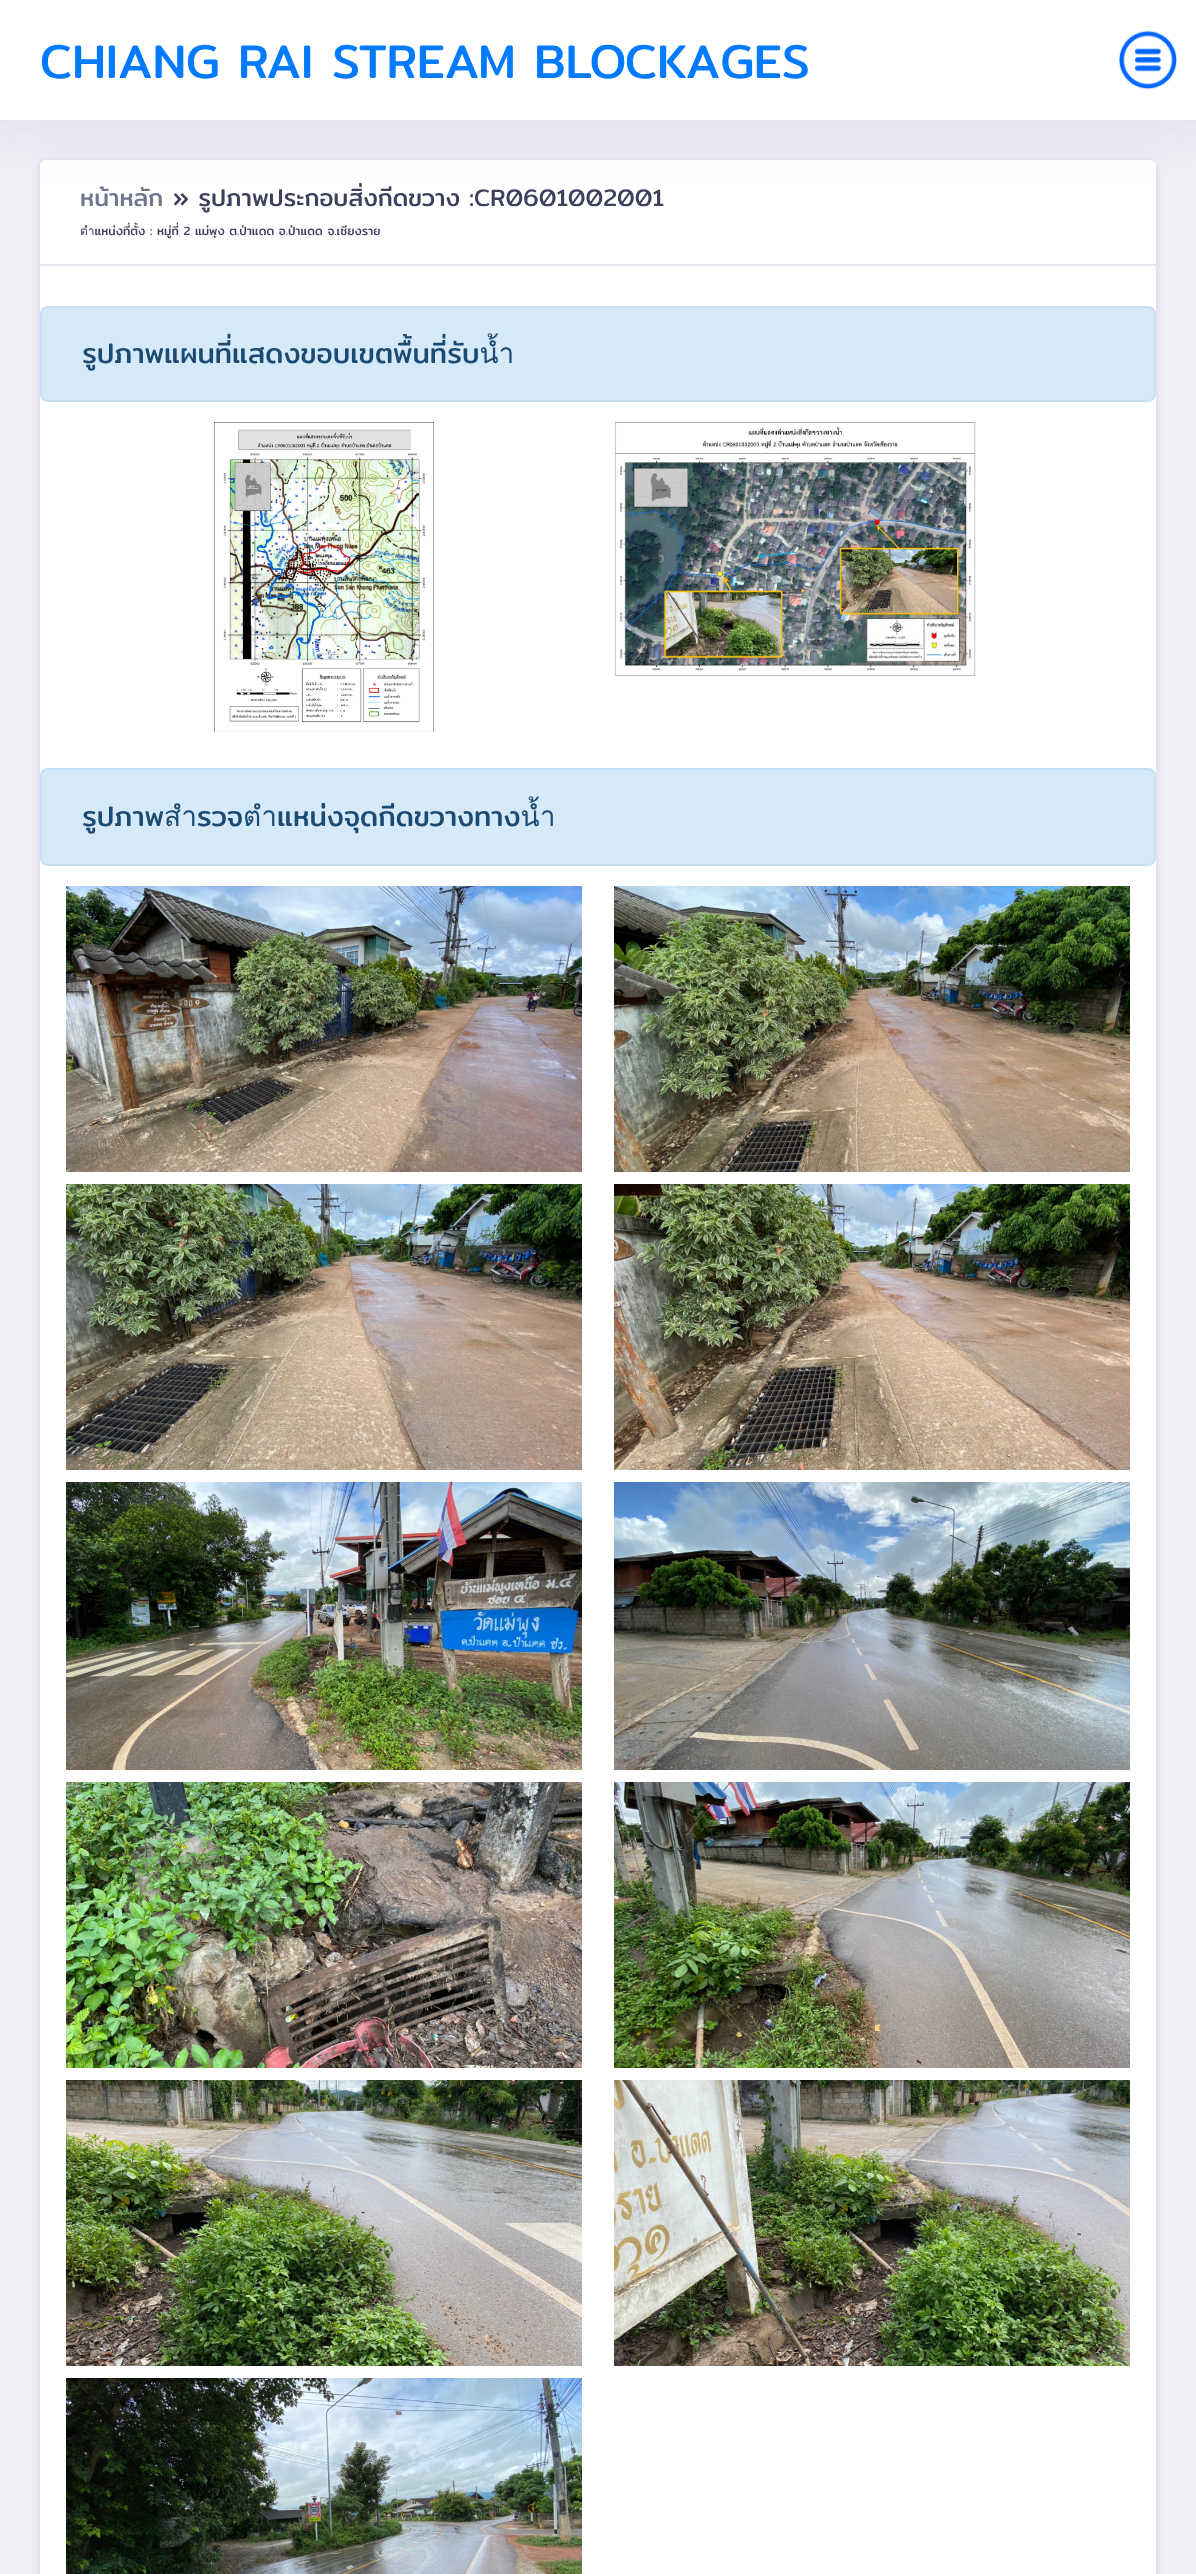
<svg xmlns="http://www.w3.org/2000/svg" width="1196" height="2574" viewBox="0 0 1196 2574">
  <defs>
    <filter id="blur1" x="-50%" y="-200%" width="200%" height="500%"><feGaussianBlur stdDeviation="2"/></filter>
    <filter id="blur2" x="-50%" y="-200%" width="200%" height="500%"><feGaussianBlur stdDeviation="28"/></filter>
  </defs>
  <rect width="100%" height="100%" fill="#efeff6"/>
  <rect x="38" y="160" width="1120" height="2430" rx="10" fill="#9a9acc" fill-opacity="0.22" filter="url(#blur1)"/>
  <rect x="40" y="160" width="1116" height="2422" rx="8" fill="#ffffff"/>
  <path d="M46 160H1150C1153.5 160 1156 162.5 1156 166V266H40V166C40 162.5 42.5 160 46 160Z" fill="#ffffff"/>
  <rect x="0" y="0" width="1196" height="122" fill="#523f69" fill-opacity="0.13" filter="url(#blur2)"/>
  <rect x="0" y="0" width="1196" height="120" fill="#ffffff"/>
  <rect x="0" y="120" width="1196" height="2" fill="#e6e6f2"/>
  <text x="40" y="78" font-family="Mitr" font-size="47.8" fill="#007bff">CHIANG RAI STREAM BLOCKAGES</text>
  <image x="1119" y="30" width="58" height="60" href="img1.png"/>
  <rect x="40" y="264" width="1116" height="2" fill="#e6e6f2"/>
  <text x="80" y="206" font-family="Mitr" font-size="24" fill="#71748d">หน้าหลัก</text>
  <text x="173" y="206" font-family="Mitr" font-size="24" fill="#3d405c">» รูปภาพประกอบสิ่งกีดขวาง :CR0601002001</text>
  <text x="80" y="235" font-family="Mitr" font-size="11.95" fill="#3d405c">ตำแหน่งที่ตั้ง : หมู่ที่ 2 แม่พุง ต.ป่าแดด อ.ป่าแดด จ.เชียงราย</text>
  <rect x="41" y="307" width="1114" height="94" rx="7" fill="#d6e9f8" stroke="#c6e0f5" stroke-width="2"/>
  <text x="82" y="363" font-family="Mitr" font-size="28" fill="#1b4b72">รูปภาพแผนที่แสดงขอบเขตพื้นที่รับน้ำ</text>
  <image x="214" y="422" width="220" height="310" href="img2.png"/>
  <image x="614" y="422" width="362" height="254" href="img3.png"/>
  <rect x="41" y="769" width="1114" height="96" rx="7" fill="#d6e9f8" stroke="#c6e0f5" stroke-width="2"/>
  <text x="82" y="826" font-family="Mitr" font-size="28" fill="#1b4b72">รูปภาพสำรวจตำแหน่งจุดกีดขวางทางน้ำ</text>
  <image x="66" y="886" width="516" height="286" href="img4.png"/>
  <image x="614" y="886" width="516" height="286" href="img5.png"/>
  <image x="66" y="1184" width="516" height="286" href="img6.png"/>
  <image x="614" y="1184" width="516" height="286" href="img7.png"/>
  <image x="66" y="1482" width="516" height="288" href="img8.png"/>
  <image x="614" y="1482" width="516" height="288" href="img9.png"/>
  <image x="66" y="1782" width="516" height="286" href="img10.png"/>
  <image x="614" y="1782" width="516" height="286" href="img11.png"/>
  <image x="66" y="2080" width="516" height="286" href="img12.png"/>
  <image x="614" y="2080" width="516" height="286" href="img13.png"/>
  <image x="66" y="2378" width="516" height="196" href="img14.png"/>
</svg>
